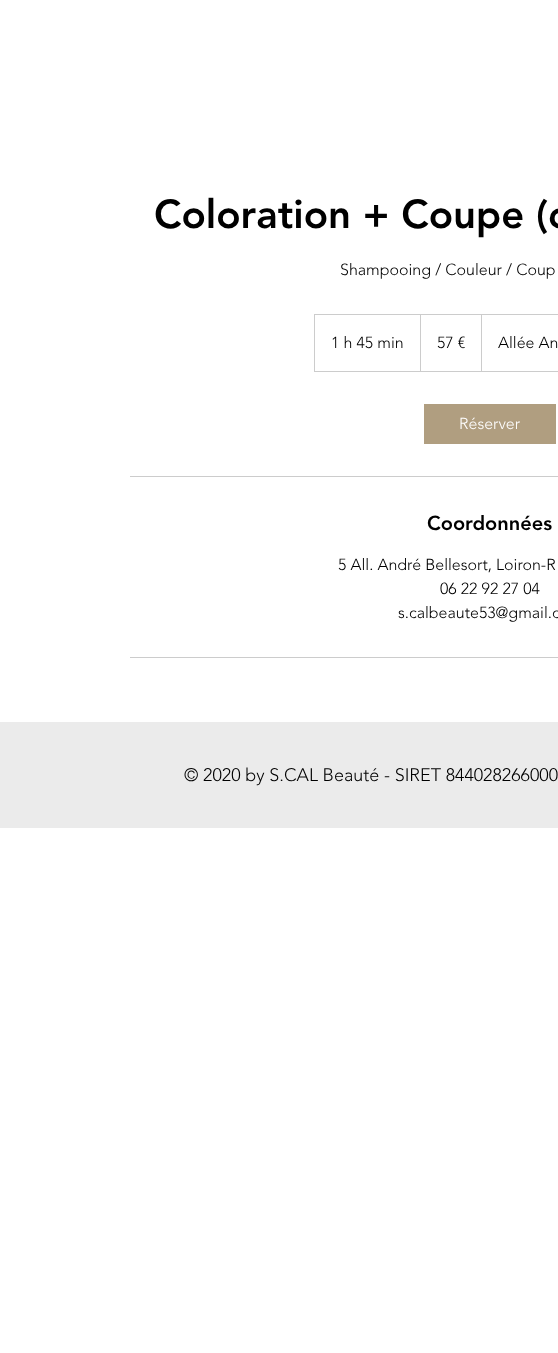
<svg xmlns="http://www.w3.org/2000/svg" width="558" height="1353" viewBox="0 0 558 1353">
  <rect width="100%" height="100%" fill="#ffffff"/>
  <text x="154" y="228" font-family="'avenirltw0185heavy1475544'" font-size="40" font-weight="900" fill="#000000">Coloration + Coupe (c</text>
  <text x="340" y="275" font-family="'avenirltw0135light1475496'" font-size="16" font-weight="300" fill="#000000">Shampooing / Couleur / Coup</text>
  <rect x="314.5" y="314.5" width="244" height="57" fill="none" stroke="#cccccc"/>
  <text x="331" y="348" font-family="'avenirltw0135light1475496'" font-size="16" font-weight="300" fill="#000000">1 h 45 min</text>
  <path d="M420 371V314L421 315V371Z" fill="#cccccc"/>
  <text x="437" y="348" font-family="'avenirltw0135light1475496'" font-size="16" font-weight="300" fill="#000000">57 €</text>
  <path d="M481 371V314L482 315V371Z" fill="#cccccc"/>
  <text x="498" y="348" font-family="'avenirltw0135light1475496'" font-size="16" font-weight="300" fill="#000000">Allée An</text>
  <rect x="424" y="404" width="132" height="40" fill="#b09e80"/>
  <text x="459" y="429" font-family="'avenirltw0135light1475496'" font-size="16" font-weight="300" fill="#ffffff">Réserver</text>
  <rect x="130" y="476" width="428" height="1" fill="#cccccc"/>
  <text x="427" y="530" font-family="'avenirltw0185heavy1475544'" font-size="20" font-weight="900" fill="#000000">Coordonnées</text>
  <text x="338" y="570" font-family="'avenirltw0135light1475496'" font-size="16" font-weight="300" fill="#000000">5 All. André Bellesort, Loiron-R</text>
  <text x="440" y="594" font-family="'avenirltw0135light1475496'" font-size="16" font-weight="300" fill="#000000">06 22 92 27 04</text>
  <text x="398" y="618" font-family="'avenirltw0135light1475496'" font-size="16" font-weight="300" fill="#000000">s.calbeaute53@gmail.c</text>
  <rect x="130" y="657" width="428" height="1" fill="#cccccc"/>
  <rect x="0" y="722" width="558" height="106" fill="#ebebeb"/>
  <text x="184" y="781" font-family="'avenirltw0135light1475496'" font-size="18" font-weight="300" fill="#000000">© 2020 by S.CAL Beauté - SIRET 844028266000</text>
</svg>
